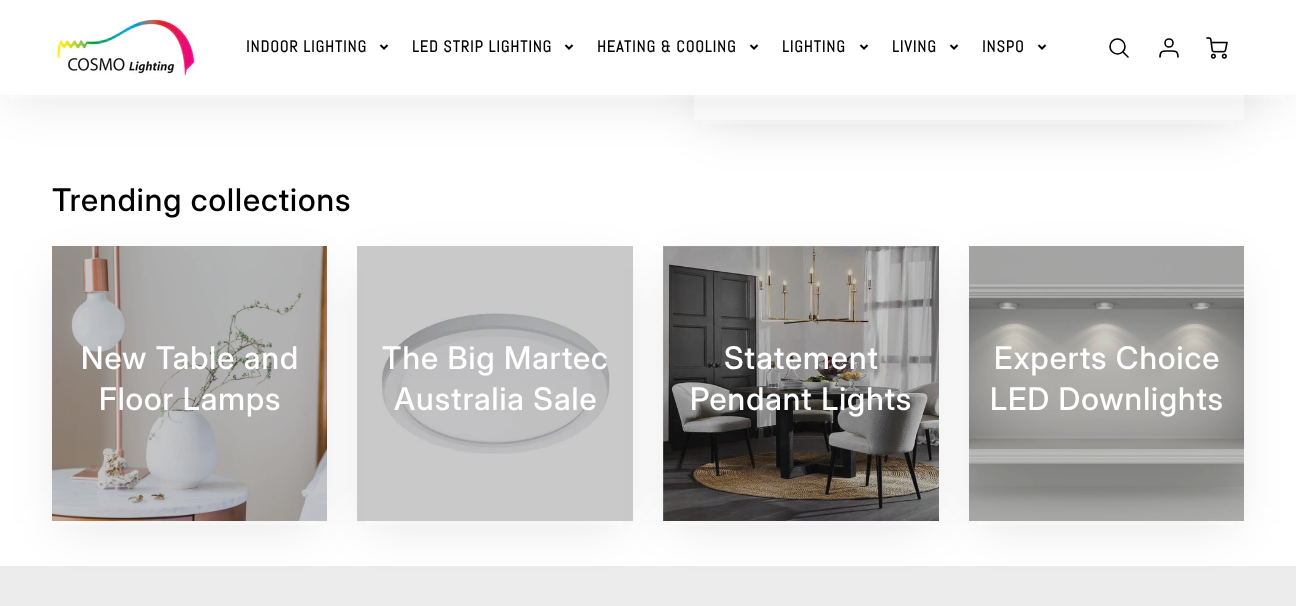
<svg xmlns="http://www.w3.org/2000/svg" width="1296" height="606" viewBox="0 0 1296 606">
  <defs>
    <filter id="blur1" x="-50%" y="-200%" width="200%" height="500%"><feGaussianBlur stdDeviation="25"/></filter>
    <clipPath id="clip1"><path d="M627 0H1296V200H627ZM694-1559H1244V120H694Z" clip-rule="evenodd"/></clipPath>
    <clipPath id="clip2"><path d="M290 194H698V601H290ZM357 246H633V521H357Z" clip-rule="evenodd"/></clipPath>
  </defs>
  <rect width="100%" height="100%" fill="#ffffff"/>
  <rect x="9" y="24" width="1276" height="75" fill="#292929" fill-opacity="0.1" filter="url(#blur1)"/>
  <g clip-path="url(#clip1)">
    <rect x="703" y="-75" width="530" height="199" fill="#292929" fill-opacity="0.1" filter="url(#blur1)"/>
  </g>
  <rect x="0" y="0" width="1296" height="95" fill="#ffffff"/>
  <image x="52" y="18" width="144" height="58" href="img1.png"/>
  <text x="246" y="52" font-family="Abel" font-size="16" font-weight="bold" letter-spacing="1" fill="#000000">INDOOR LIGHTING</text>
  <image x="379" y="44" width="10" height="6" href="img2.png"/>
  <text x="412" y="52" font-family="Abel" font-size="16" font-weight="bold" letter-spacing="1" fill="#000000">LED STRIP LIGHTING</text>
  <image x="564" y="44" width="10" height="6" href="img2.png"/>
  <text x="597" y="52" font-family="Abel" font-size="16" font-weight="bold" letter-spacing="1" fill="#000000">HEATING &amp; COOLING</text>
  <image x="749" y="44" width="10" height="6" href="img2.png"/>
  <text x="782" y="52" font-family="Abel" font-size="16" font-weight="bold" letter-spacing="1" fill="#000000">LIGHTING</text>
  <image x="859" y="44" width="10" height="6" href="img2.png"/>
  <text x="892" y="52" font-family="Abel" font-size="16" font-weight="bold" letter-spacing="1" fill="#000000">LIVING</text>
  <image x="949" y="44" width="10" height="6" href="img2.png"/>
  <text x="982" y="52" font-family="Abel" font-size="16" font-weight="bold" letter-spacing="1" fill="#000000">INSPO</text>
  <image x="1037" y="44" width="10" height="6" href="img2.png"/>
  <circle cx="1117.5" cy="46.5" r="7.5" fill="none" stroke="#000000" stroke-width="1.6"/>
  <path d="M1128 57L1123 52" fill="none" stroke="#000000" stroke-width="1.6" stroke-linecap="round" stroke-linejoin="round"/>
  <circle cx="1169" cy="43" r="4" fill="none" stroke="#000000" stroke-width="1.6"/>
  <path d="M1178 57C1178 50 1174.5 51 1169 51C1163.5 51 1160 50 1160 57" fill="none" stroke="#000000" stroke-width="1.6" stroke-linecap="round" stroke-linejoin="round"/>
  <image x="1206" y="37" width="22" height="22" href="img3.png"/>
  <text x="52" y="211" font-family="Inter" font-size="31.25" font-weight="500" letter-spacing="1" fill="#000000">Trending collections</text>
  <rect x="0" y="566" width="1296" height="40" fill="#ececec"/>
  <rect x="61" y="270" width="255" height="255" fill="#292929" fill-opacity="0.1" filter="url(#blur1)"/>
  <image x="52" y="246" width="275" height="275" href="img4.png"/>
  <g clip-path="url(#clip2)">
    <rect x="366" y="270" width="256" height="255" fill="#292929" fill-opacity="0.1" filter="url(#blur1)"/>
  </g>
  <rect x="52" y="246" width="275" height="275" fill="#292929" fill-opacity="0.25"/>
  <text x="81" y="369" font-family="Inter" font-size="31.25" font-weight="500" letter-spacing="1" fill="#ffffff">New Table and</text>
  <text x="99" y="410" font-family="Inter" font-size="31.25" font-weight="500" letter-spacing="1" fill="#ffffff">Floor Lamps</text>
  <image x="381" y="313" width="229" height="141" href="img5.png"/>
  <rect x="672" y="270" width="256" height="255" fill="#292929" fill-opacity="0.1" filter="url(#blur1)"/>
  <rect x="357" y="246" width="276" height="275" fill="#292929" fill-opacity="0.25"/>
  <text x="382" y="369" font-family="Inter" font-size="31.25" font-weight="500" letter-spacing="1" fill="#ffffff">The Big Martec</text>
  <text x="394" y="410" font-family="Inter" font-size="31.25" font-weight="500" letter-spacing="1" fill="#ffffff">Australia Sale</text>
  <image x="663" y="246" width="276" height="275" href="img6.png"/>
  <rect x="978" y="270" width="255" height="255" fill="#292929" fill-opacity="0.1" filter="url(#blur1)"/>
  <rect x="663" y="246" width="276" height="275" fill="#292929" fill-opacity="0.25"/>
  <text x="724" y="369" font-family="Inter" font-size="31.25" font-weight="500" letter-spacing="1" fill="#ffffff">Statement</text>
  <text x="690" y="410" font-family="Inter" font-size="31.25" font-weight="500" letter-spacing="1" fill="#ffffff">Pendant Lights</text>
  <image x="969" y="246" width="275" height="275" href="img7.png"/>
  <text x="994" y="369" font-family="Inter" font-size="31.25" font-weight="500" letter-spacing="1" fill="#ffffff">Experts Choice</text>
  <text x="990" y="410" font-family="Inter" font-size="31.25" font-weight="500" letter-spacing="1" fill="#ffffff">LED Downlights</text>
</svg>
